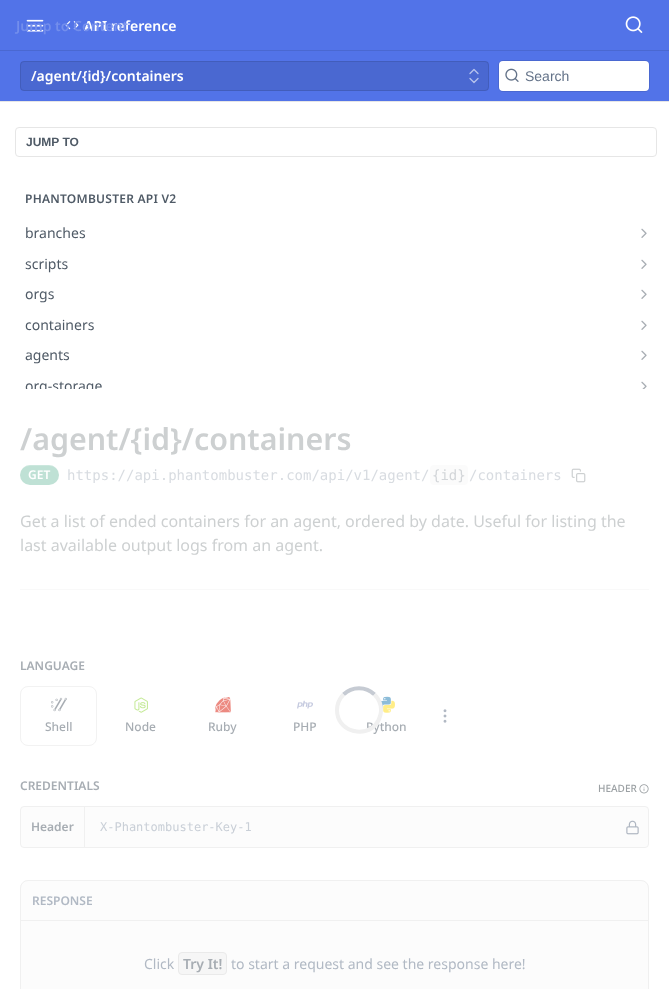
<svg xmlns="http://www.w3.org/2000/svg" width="669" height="989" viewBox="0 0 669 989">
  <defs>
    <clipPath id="clip1"><rect x="0" y="101" width="669" height="288"/></clipPath>
  </defs>
  <rect width="100%" height="100%" fill="#ffffff"/>
  <rect x="0" y="101" width="669" height="1" fill="#e6e6e6"/>
  <rect x="0" y="0" width="669" height="101" fill="#5273e8"/>
  <rect x="0" y="50" width="669" height="1" fill="#4a68d1"/>
  <image x="26" y="19" width="18" height="13" href="img1.png"/>
  <image x="65" y="21" width="14" height="9" href="img2.png"/>
  <text x="84" y="31" font-family="Noto Sans" font-size="14" font-weight="600" fill="#ffffff">API reference</text>
  <text x="16" y="31" font-family="Noto Sans" font-size="14" font-weight="600" fill="#738eec">Jump to Content</text>
  <image x="625" y="16" width="18" height="17" href="img3.png"/>
  <rect x="20" y="61" width="469" height="30" rx="4" fill="#4a68d1"/>
  <rect x="20.5" y="61.5" width="468" height="29" rx="3.5" fill="none" stroke="#000000" stroke-opacity="0.1"/>
  <text x="31" y="81" font-family="Noto Sans" font-size="14" font-weight="600" fill="#ffffff">/agent/{id}/containers</text>
  <path d="M470 78.5L474 82.5L478 78.5M478 73.5L474 69.5L470 73.5" fill="none" stroke="#b7c3ed" stroke-width="1.3" stroke-linecap="round" stroke-linejoin="round"/>
  <rect x="498.5" y="60.5" width="151" height="31" rx="4.5" fill="none" stroke="#4a68d1"/>
  <rect x="499" y="61" width="150" height="30" rx="4" fill="#ffffff"/>
  <image x="505" y="68" width="14" height="14" href="img4.png"/>
  <text x="525" y="81" font-family="Liberation Sans" font-size="14" fill="#637288">Search</text>
  <rect x="15.5" y="127.5" width="641" height="29" rx="3.5" fill="none" stroke="#e6e6e6"/>
  <text x="26" y="146" font-family="Liberation Sans" font-size="12" font-weight="bold" fill="#4f5a66">JUMP TO</text>
  <text x="25" y="203" font-family="Noto Sans" font-size="12" font-weight="600" letter-spacing="0.25" fill="#4f5a66">PHANTOMBUSTER API V2</text>
  <text x="25" y="238" font-family="Noto Sans" font-size="14" fill="#4f5a66">branches</text>
  <image x="641" y="228" width="6" height="10" href="img5.png"/>
  <text x="25" y="269" font-family="Noto Sans" font-size="14" fill="#4f5a66">scripts</text>
  <image x="641" y="259" width="6" height="10" href="img5.png"/>
  <text x="25" y="299" font-family="Noto Sans" font-size="14" fill="#4f5a66">orgs</text>
  <image x="641" y="289" width="6" height="10" href="img5.png"/>
  <text x="25" y="330" font-family="Noto Sans" font-size="14" fill="#4f5a66">containers</text>
  <image x="641" y="320" width="6" height="10" href="img5.png"/>
  <text x="25" y="360" font-family="Noto Sans" font-size="14" fill="#4f5a66">agents</text>
  <image x="641" y="350" width="6" height="10" href="img5.png"/>
  <g clip-path="url(#clip1)">
    <text x="25" y="391" font-family="Noto Sans" font-size="14" fill="#4f5a66">org-storage</text>
  </g>
  <image x="641" y="381" width="6" height="8" href="img6.png"/>
  <rect x="20" y="589" width="629" height="1" fill="#f9f9f9"/>
  <text x="20" y="450" font-family="Noto Sans" font-size="30.4" font-weight="600" fill="#cdd0d1">/agent/{id}/containers</text>
  <rect x="20" y="465" width="39" height="20" rx="10" fill="#bfe1d5"/>
  <path d="M30 466H49C55 466 59 470 59 475.5C59 473.5 58.5 471 57.5 469.5C53.5 463.5 45.5 465 39.5 465C33.5 465 25.5 463.5 21.5 469.5C20.5 471 20 473.5 20 475.5C20 470 24 466 30 466Z" fill="#ffffff" fill-opacity="0.2"/>
  <text x="28" y="479" font-family="Noto Sans" font-size="12" font-weight="600" fill="#ffffff">GET</text>
  <text x="67" y="480" font-family="DejaVu Sans Mono" font-size="14" fill="#d8dce1">https://api.phantombuster.com/api/v1/agent/</text>
  <rect x="430" y="465" width="38" height="20" rx="4" fill="#fbfbfb"/>
  <text x="432" y="480" font-family="DejaVu Sans Mono" font-size="14" fill="#d3d6d9">{id}</text>
  <text x="469" y="480" font-family="DejaVu Sans Mono" font-size="14" fill="#d8dce1">/containers</text>
  <image x="571" y="468" width="15" height="15" href="img7.png"/>
  <text x="20" y="527" font-family="Noto Sans" font-size="16" fill="#cdd0d1">Get a list of ended containers for an agent, ordered by date. Useful for listing the</text>
  <text x="20" y="551" font-family="Noto Sans" font-size="16" fill="#cdd0d1">last available output logs from an agent.</text>
  <path d="M343.5 694.5C352 686 366 686 374.5 694.5" fill="none" stroke="#c6cbd3" stroke-width="4"/>
  <image x="381" y="696" width="10" height="13" href="img13.png"/>
  <text x="366" y="731" font-family="Noto Sans" font-size="12" font-weight="500" fill="#a7adb3">Python</text>
  <path d="M374.5 694.5C379.5 699.5 382 707 380.5 714.5C375.5 740 337 736 337 710C337 704 339.5 698.5 343.5 694.5" fill="none" stroke="#f0f0f0" stroke-width="4"/>
  <text x="20" y="670" font-family="Noto Sans" font-size="12" font-weight="600" fill="#a7adb3">LANGUAGE</text>
  <image x="443" y="709" width="4" height="14" href="img8.png"/>
  <rect x="20.5" y="686.5" width="76" height="59" rx="7.5" fill="none" stroke="#f2f2f2"/>
  <image x="51" y="697" width="16" height="15" href="img9.png"/>
  <text x="45" y="731" font-family="Noto Sans" font-size="12" font-weight="500" fill="#a7adb3">Shell</text>
  <image x="134" y="697" width="14" height="16" href="img10.png"/>
  <text x="125" y="731" font-family="Noto Sans" font-size="12" font-weight="500" fill="#a7adb3">Node</text>
  <image x="215" y="697" width="16" height="16" href="img11.png"/>
  <text x="208" y="731" font-family="Noto Sans" font-size="12" font-weight="500" fill="#a7adb3">Ruby</text>
  <image x="297" y="700" width="16" height="9" href="img12.png"/>
  <text x="293" y="731" font-family="Noto Sans" font-size="12" font-weight="500" fill="#a7adb3">PHP</text>
  <image x="383" y="700" width="12" height="13" href="img14.png"/>
  <text x="20" y="790" font-family="Noto Sans" font-size="12" font-weight="600" fill="#a7adb3">CREDENTIALS</text>
  <text x="598" y="792" font-family="Noto Sans" font-size="10" font-weight="500" fill="#9ca1a4">HEADER</text>
  <image x="639" y="784" width="10" height="10" href="img15.png"/>
  <rect x="20.5" y="806.5" width="628" height="41" rx="3.5" fill="#fcfcfc" stroke="#f0f0f0"/>
  <rect x="84" y="807" width="1" height="40" fill="#f0f0f0"/>
  <text x="31" y="831" font-family="Noto Sans" font-size="12" font-weight="600" fill="#a7adb3">Header</text>
  <text x="100" y="831" font-family="DejaVu Sans Mono" font-size="12" fill="#c9cfd7">X-Phantombuster-Key-1</text>
  <image x="626" y="820" width="13" height="15" href="img16.png"/>
  <path d="M28 880H641C645.5 880 649 883.5 649 888V989H20V888C20 883.5 23.5 880 28 880Z" fill="#fcfcfc"/>
  <rect x="20.5" y="880.5" width="628" height="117" rx="7.5" fill="none" stroke="#f0f0f0"/>
  <rect x="21" y="920" width="627" height="1" fill="#f0f0f0"/>
  <text x="32" y="905" font-family="Noto Sans" font-size="12" font-weight="600" fill="#b1b9c4">RESPONSE</text>
  <text x="144" y="969" font-family="Noto Sans" font-size="14" fill="#b1b9c4">Click</text>
  <rect x="178.5" y="952.5" width="48" height="22" rx="3.5" fill="#f6f6f6" stroke="#eaeaea"/>
  <text x="183" y="969" font-family="Noto Sans" font-size="14" font-weight="600" fill="#a7adb3">Try It!</text>
  <text x="231" y="969" font-family="Noto Sans" font-size="14" fill="#b1b9c4">to start a request and see the response here!</text>
</svg>
